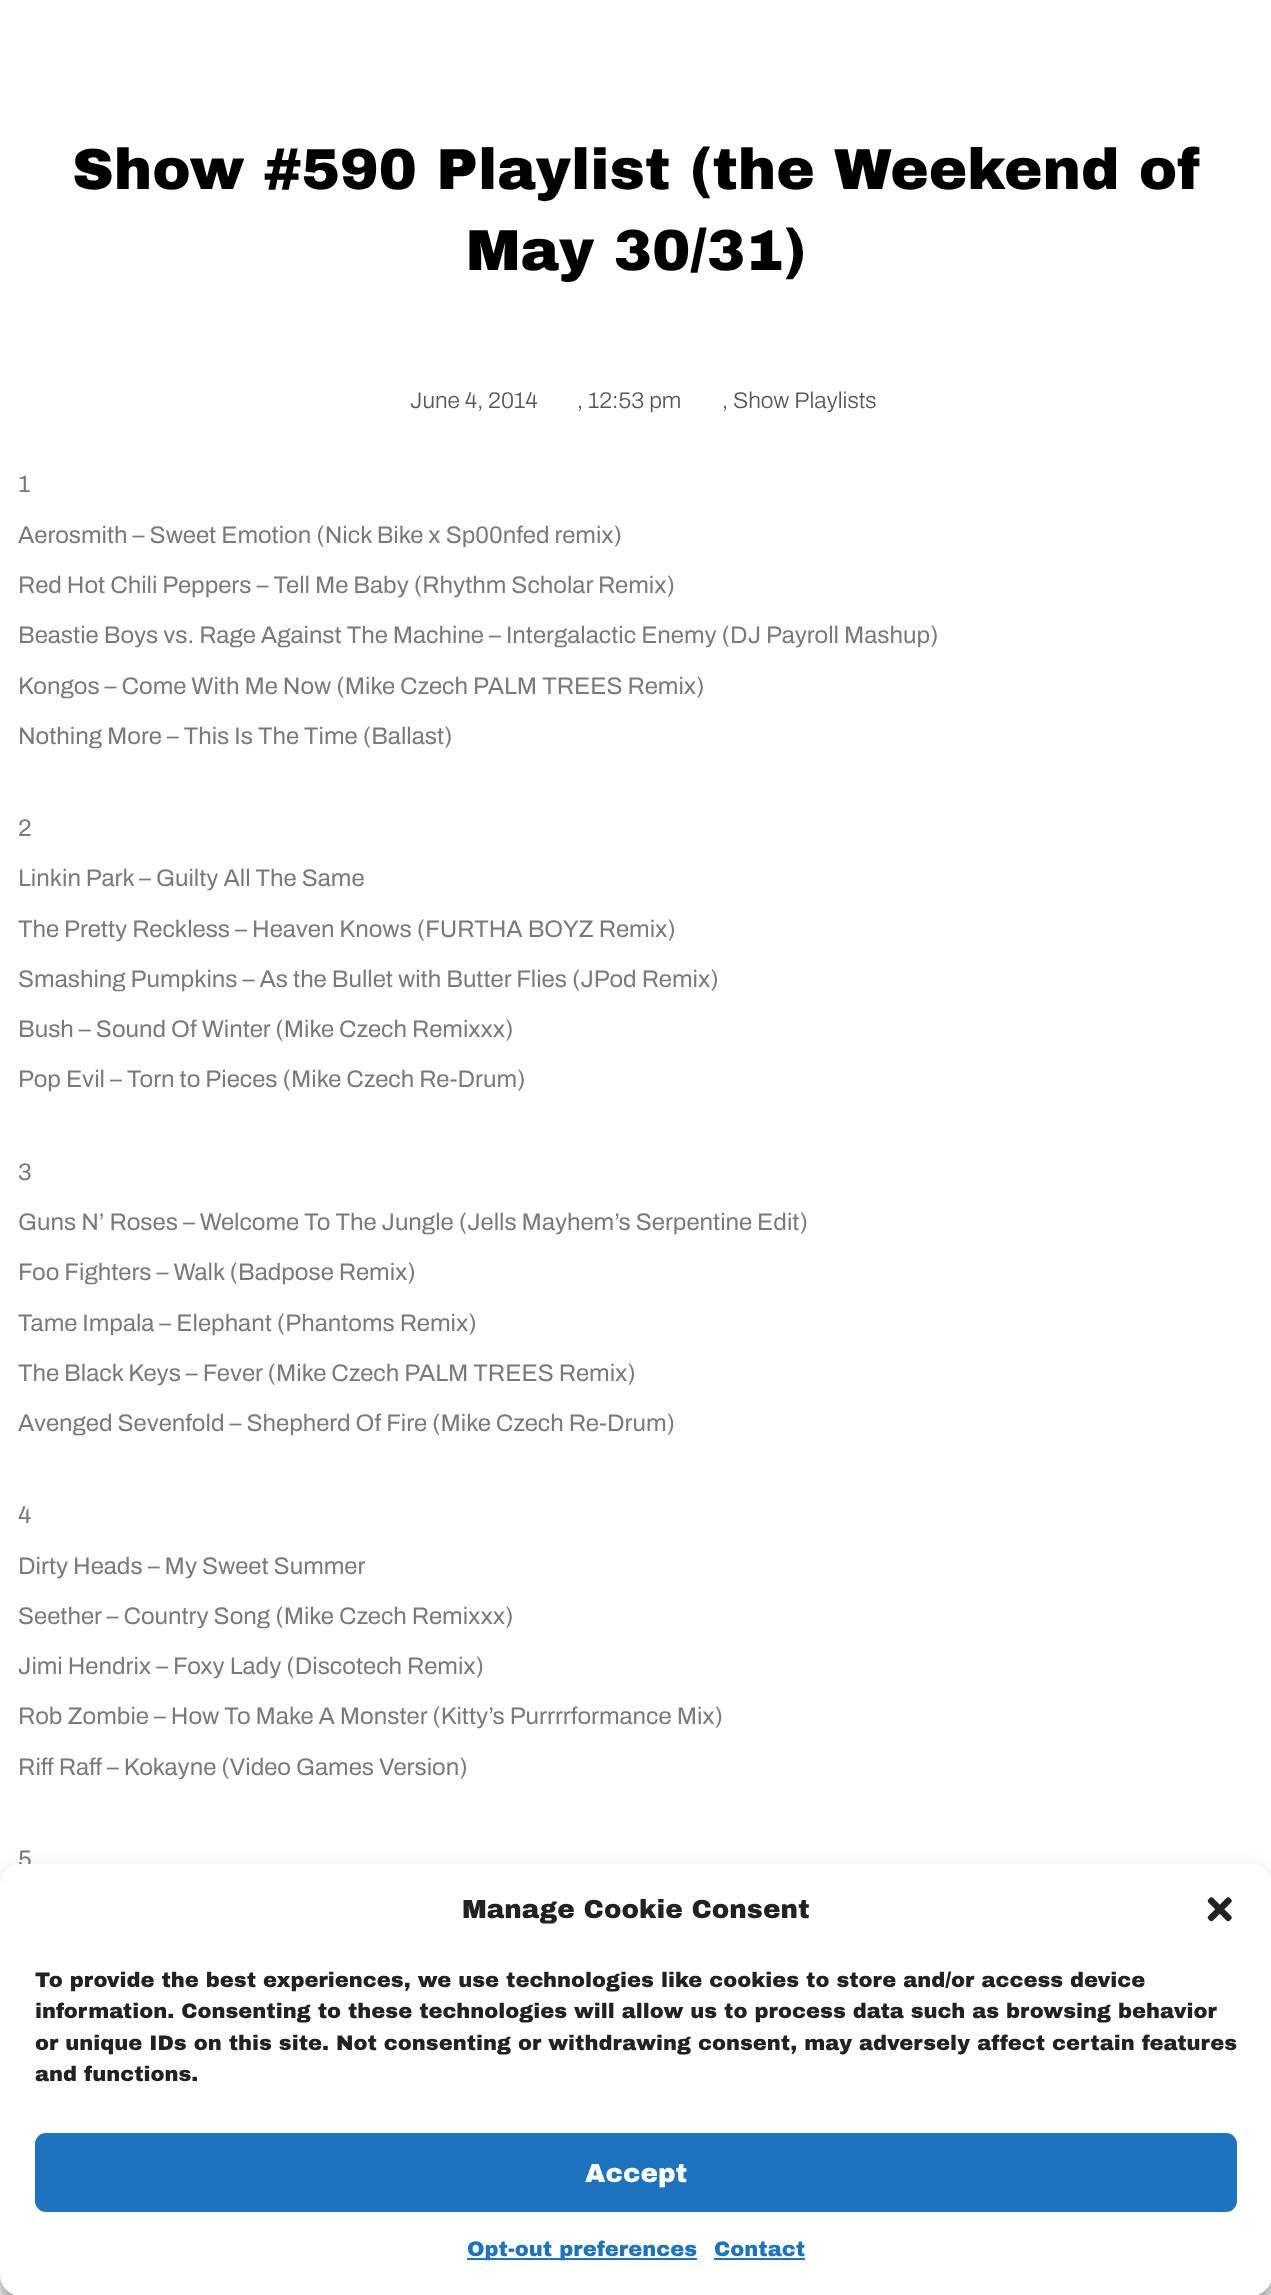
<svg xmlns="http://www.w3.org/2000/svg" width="1271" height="2295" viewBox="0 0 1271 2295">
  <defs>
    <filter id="blur1" x="-50%" y="-200%" width="200%" height="500%"><feGaussianBlur stdDeviation="5"/></filter>
    <filter id="blur2" x="-50%" y="-200%" width="200%" height="500%"><feGaussianBlur stdDeviation="17.5"/></filter>
  </defs>
  <rect width="100%" height="100%" fill="#ffffff"/>
  <text x="72" y="189" font-family="Archivo Black" font-size="57.75" font-weight="900" fill="#000000">Show #590 Playlist (the Weekend of</text>
  <text x="466" y="270" font-family="Archivo Black" font-size="57.75" font-weight="900" fill="#000000">May 30/31)</text>
  <text x="410" y="408" font-family="Archivo" font-size="22.75" font-weight="300" fill="#54595f">June 4, 2014</text>
  <text x="577" y="408" font-family="Archivo" font-size="22.75" font-weight="300" fill="#54595f">, 12:53 pm</text>
  <text x="722" y="408" font-family="Archivo" font-size="22.75" font-weight="300" fill="#54595f">, Show Playlists</text>
  <text x="18" y="492" font-family="Archivo" font-size="23.95" fill="#7a7a7a">1</text>
  <text x="18" y="543" font-family="Archivo" font-size="23.95" fill="#7a7a7a">Aerosmith – Sweet Emotion (Nick Bike x Sp00nfed remix)</text>
  <text x="18" y="593" font-family="Archivo" font-size="23.95" fill="#7a7a7a">Red Hot Chili Peppers – Tell Me Baby (Rhythm Scholar Remix)</text>
  <text x="18" y="643" font-family="Archivo" font-size="23.95" fill="#7a7a7a">Beastie Boys vs. Rage Against The Machine – Intergalactic Enemy (DJ Payroll Mashup)</text>
  <text x="18" y="694" font-family="Archivo" font-size="23.95" fill="#7a7a7a">Kongos – Come With Me Now (Mike Czech PALM TREES Remix)</text>
  <text x="18" y="744" font-family="Archivo" font-size="23.95" fill="#7a7a7a">Nothing More – This Is The Time (Ballast)</text>
  <text x="18" y="836" font-family="Archivo" font-size="23.95" fill="#7a7a7a">2</text>
  <text x="18" y="886" font-family="Archivo" font-size="23.95" fill="#7a7a7a">Linkin Park – Guilty All The Same</text>
  <text x="18" y="937" font-family="Archivo" font-size="23.95" fill="#7a7a7a">The Pretty Reckless – Heaven Knows (FURTHA BOYZ Remix)</text>
  <text x="18" y="987" font-family="Archivo" font-size="23.95" fill="#7a7a7a">Smashing Pumpkins – As the Bullet with Butter Flies (JPod Remix)</text>
  <text x="18" y="1037" font-family="Archivo" font-size="23.95" fill="#7a7a7a">Bush – Sound Of Winter (Mike Czech Remixxx)</text>
  <text x="18" y="1087" font-family="Archivo" font-size="23.95" fill="#7a7a7a">Pop Evil – Torn to Pieces (Mike Czech Re-Drum)</text>
  <text x="18" y="1180" font-family="Archivo" font-size="23.95" fill="#7a7a7a">3</text>
  <text x="18" y="1230" font-family="Archivo" font-size="23.95" fill="#7a7a7a">Guns N’ Roses – Welcome To The Jungle (Jells Mayhem’s Serpentine Edit)</text>
  <text x="18" y="1280" font-family="Archivo" font-size="23.95" fill="#7a7a7a">Foo Fighters – Walk (Badpose Remix)</text>
  <text x="18" y="1331" font-family="Archivo" font-size="23.95" fill="#7a7a7a">Tame Impala – Elephant (Phantoms Remix)</text>
  <text x="18" y="1381" font-family="Archivo" font-size="23.95" fill="#7a7a7a">The Black Keys – Fever (Mike Czech PALM TREES Remix)</text>
  <text x="18" y="1431" font-family="Archivo" font-size="23.95" fill="#7a7a7a">Avenged Sevenfold – Shepherd Of Fire (Mike Czech Re-Drum)</text>
  <text x="18" y="1523" font-family="Archivo" font-size="23.95" fill="#7a7a7a">4</text>
  <text x="18" y="1574" font-family="Archivo" font-size="23.95" fill="#7a7a7a">Dirty Heads – My Sweet Summer</text>
  <text x="18" y="1624" font-family="Archivo" font-size="23.95" fill="#7a7a7a">Seether – Country Song (Mike Czech Remixxx)</text>
  <text x="18" y="1674" font-family="Archivo" font-size="23.95" fill="#7a7a7a">Jimi Hendrix – Foxy Lady (Discotech Remix)</text>
  <text x="18" y="1724" font-family="Archivo" font-size="23.95" fill="#7a7a7a">Rob Zombie – How To Make A Monster (Kitty’s Purrrrformance Mix)</text>
  <text x="18" y="1775" font-family="Archivo" font-size="23.95" fill="#7a7a7a">Riff Raff – Kokayne (Video Games Version)</text>
  <text x="18" y="1867" font-family="Archivo" font-size="23.95" fill="#7a7a7a">5</text>
  <rect x="0" y="1874" width="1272" height="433" rx="21" fill="#000000" fill-opacity="0.23" filter="url(#blur1)"/>
  <rect x="0" y="1881" width="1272" height="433" rx="21" fill="#000000" fill-opacity="0.19" filter="url(#blur2)"/>
  <rect x="0" y="1864" width="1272" height="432" rx="21" fill="#ffffff"/>
  <text x="462" y="1918" font-family="Archivo Black" font-size="26.25" font-weight="900" fill="#222222">Manage Cookie Consent</text>
  <image x="1207" y="1897" width="25" height="25" href="img1.png"/>
  <text x="35" y="1987" font-family="Archivo Black" font-size="21" font-weight="900" fill="#222222">To provide the best experiences, we use technologies like cookies to store and/or access device</text>
  <text x="35" y="2018" font-family="Archivo Black" font-size="21" font-weight="900" fill="#222222">information. Consenting to these technologies will allow us to process data such as browsing behavior</text>
  <text x="35" y="2050" font-family="Archivo Black" font-size="21" font-weight="900" fill="#222222">or unique IDs on this site. Not consenting or withdrawing consent, may adversely affect certain features</text>
  <text x="35" y="2081" font-family="Archivo Black" font-size="21" font-weight="900" fill="#222222">and functions.</text>
  <rect x="36" y="2134" width="1200" height="77" rx="10" fill="#1e73be" stroke="#1e73be" stroke-width="2"/>
  <text x="585" y="2182" font-family="Archivo Black" font-size="26.25" font-weight="900" fill="#ffffff">Accept</text>
  <rect x="467" y="2258" width="230" height="2" fill="#1e73be"/>
  <text x="467" y="2256" font-family="Archivo Black" font-size="21" font-weight="900" fill="#1e73be">Opt-out preferences</text>
  <text x="714" y="2256" font-family="Archivo Black" font-size="21" font-weight="900" fill="#1e73be">Contact</text>
  <rect x="714" y="2258" width="91" height="2" fill="#1e73be"/>
</svg>
